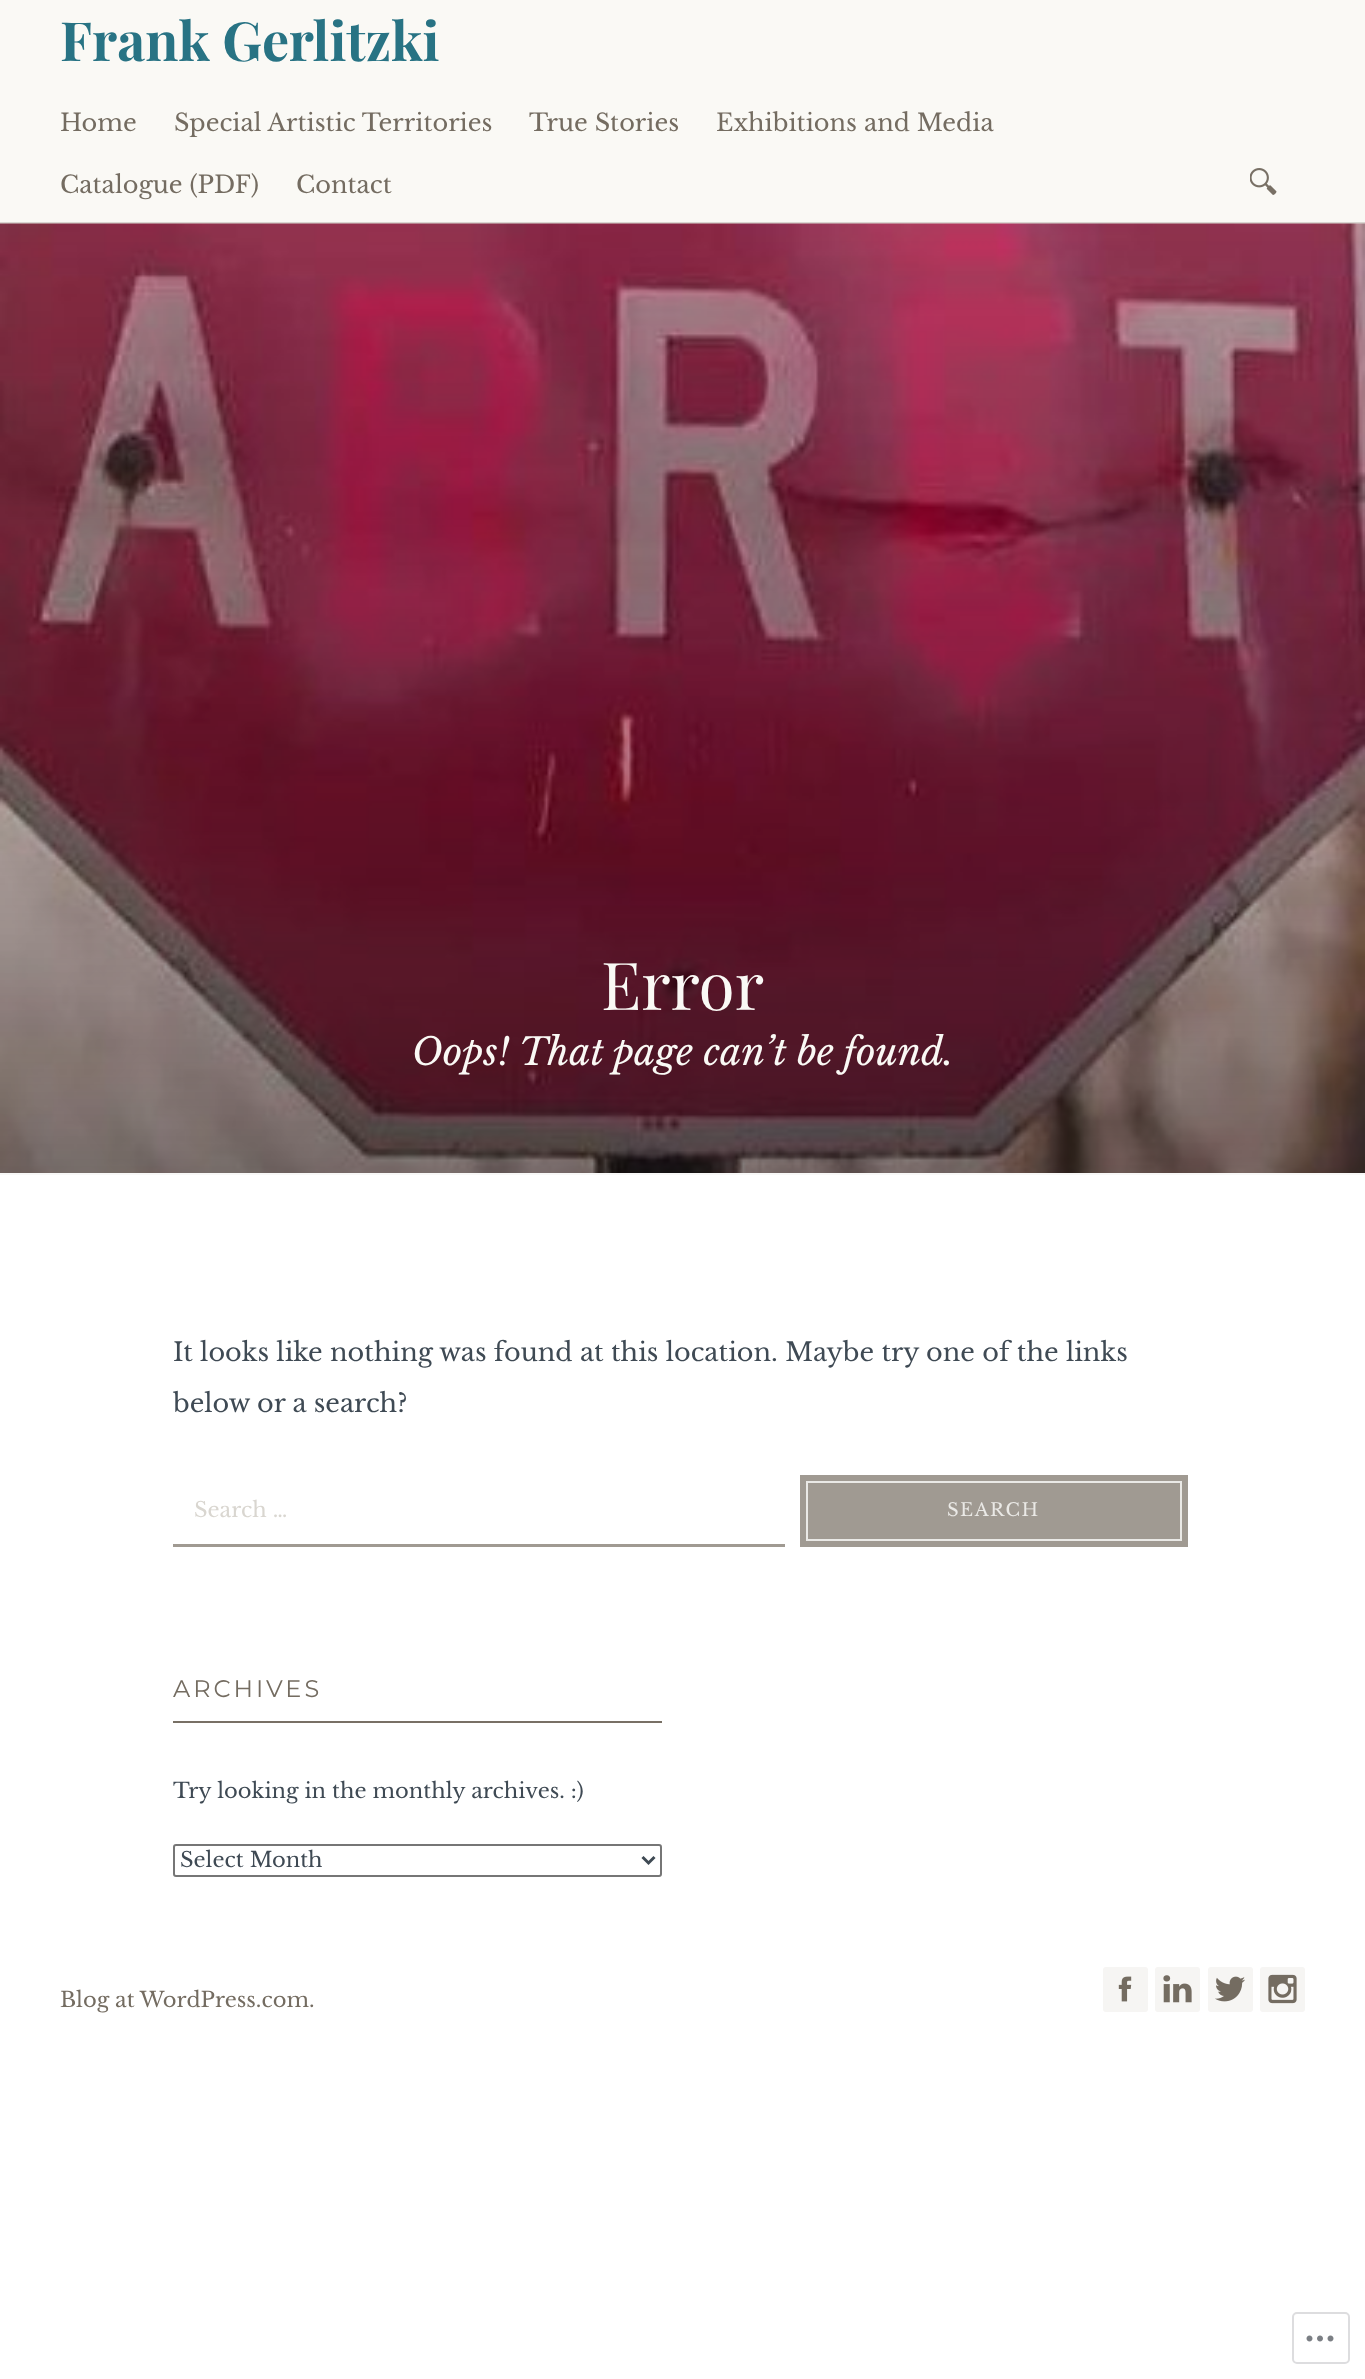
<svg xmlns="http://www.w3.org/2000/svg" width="1365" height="2379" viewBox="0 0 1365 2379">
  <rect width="100%" height="100%" fill="#ffffff"/>
  <rect x="0" y="0" width="1365" height="222" fill="#faf9f5"/>
  <rect x="0" y="222" width="1365" height="2" fill="#d9d6d0"/>
  <text x="60" y="61" font-family="Playfair Display" font-size="54" font-weight="bold" fill="#287384">Frank Gerlitzki</text>
  <text x="60" y="131" font-family="Libre Baskerville" font-size="24" fill="#746c61">Home</text>
  <text x="174" y="131" font-family="Libre Baskerville" font-size="24" fill="#746c61">Special Artistic Territories</text>
  <text x="529" y="131" font-family="Libre Baskerville" font-size="24" fill="#746c61">True Stories</text>
  <text x="716" y="131" font-family="Libre Baskerville" font-size="24" fill="#746c61">Exhibitions and Media</text>
  <text x="60" y="193" font-family="Libre Baskerville" font-size="24" fill="#746c61">Catalogue (PDF)</text>
  <text x="296" y="193" font-family="Libre Baskerville" font-size="24" fill="#746c61">Contact</text>
  <image x="1250" y="168" width="27" height="27" href="img1.png"/>
  <image x="0" y="223" width="1365" height="950" href="img2.png"/>
  <rect x="0" y="1173" width="1365" height="2" fill="#f8f8f7"/>
  <text x="601" y="1010" font-family="Playfair Display" font-size="66" fill="#faf9f5">Error</text>
  <text x="412" y="1065" font-family="Libre Baskerville" font-size="37.5" font-style="italic" fill="#faf9f5">Oops! That page can’t be found.</text>
  <text x="173" y="1361" font-family="Libre Baskerville" font-size="25.5" fill="#3f4a54">It looks like nothing was found at this location. Maybe try one of the links</text>
  <text x="173" y="1412" font-family="Libre Baskerville" font-size="25.5" fill="#3f4a54">below or a search?</text>
  <rect x="173" y="1544" width="612" height="3" fill="#a09a92"/>
  <text x="194" y="1517" font-family="Libre Baskerville" font-size="21" fill="#d9d6d0">Search …</text>
  <rect x="807" y="1482" width="374" height="58" fill="#a09a92" stroke="#eae9e6" stroke-width="2"/>
  <rect x="803" y="1478" width="382" height="66" fill="none" stroke="#a09a92" stroke-width="6"/>
  <text x="947" y="1516" font-family="Libre Baskerville" font-size="18" letter-spacing="1.5" fill="#eae9e6">SEARCH</text>
  <rect x="173" y="1721" width="489" height="2" fill="#787065"/>
  <text x="173" y="1697" font-family="Montserrat" font-size="24" font-weight="100" letter-spacing="3" fill="#746c61">ARCHIVES</text>
  <text x="173" y="1798" font-family="Libre Baskerville" font-size="21" fill="#3f4a54">Try looking in the monthly archives. :)</text>
  <rect x="174" y="1845" width="487" height="31" rx="2" fill="none" stroke="#767676" stroke-width="2"/>
  <path d="M642.5 1857L648.5 1863L654.5 1857" fill="none" stroke="#3f4a54" stroke-width="3"/>
  <text x="180" y="1867" font-family="Libre Baskerville" font-size="21" fill="#3f4a54">Select Month</text>
  <text x="60" y="2007" font-family="Libre Baskerville" font-size="21" fill="#746c61">Blog at WordPress.com.</text>
  <rect x="1103" y="1967" width="45" height="45" rx="3" fill="#f6f5f3"/>
  <image x="1118" y="1976" width="14" height="26" href="img3.png"/>
  <rect x="1155" y="1967" width="45" height="45" rx="3" fill="#f6f5f3"/>
  <image x="1163" y="1975" width="29" height="28" href="img4.png"/>
  <rect x="1208" y="1967" width="45" height="45" rx="3" fill="#f6f5f3"/>
  <image x="1215" y="1976" width="30" height="26" href="img5.png"/>
  <rect x="1260" y="1967" width="45" height="45" rx="3" fill="#f6f5f3"/>
  <image x="1268" y="1974" width="29" height="30" href="img6.png"/>
  <rect x="1293" y="2313" width="56" height="50" rx="4" fill="none" stroke="#dddddf" stroke-width="2"/>
  <image x="1306" y="2335" width="28" height="7" href="img7.png"/>
</svg>
